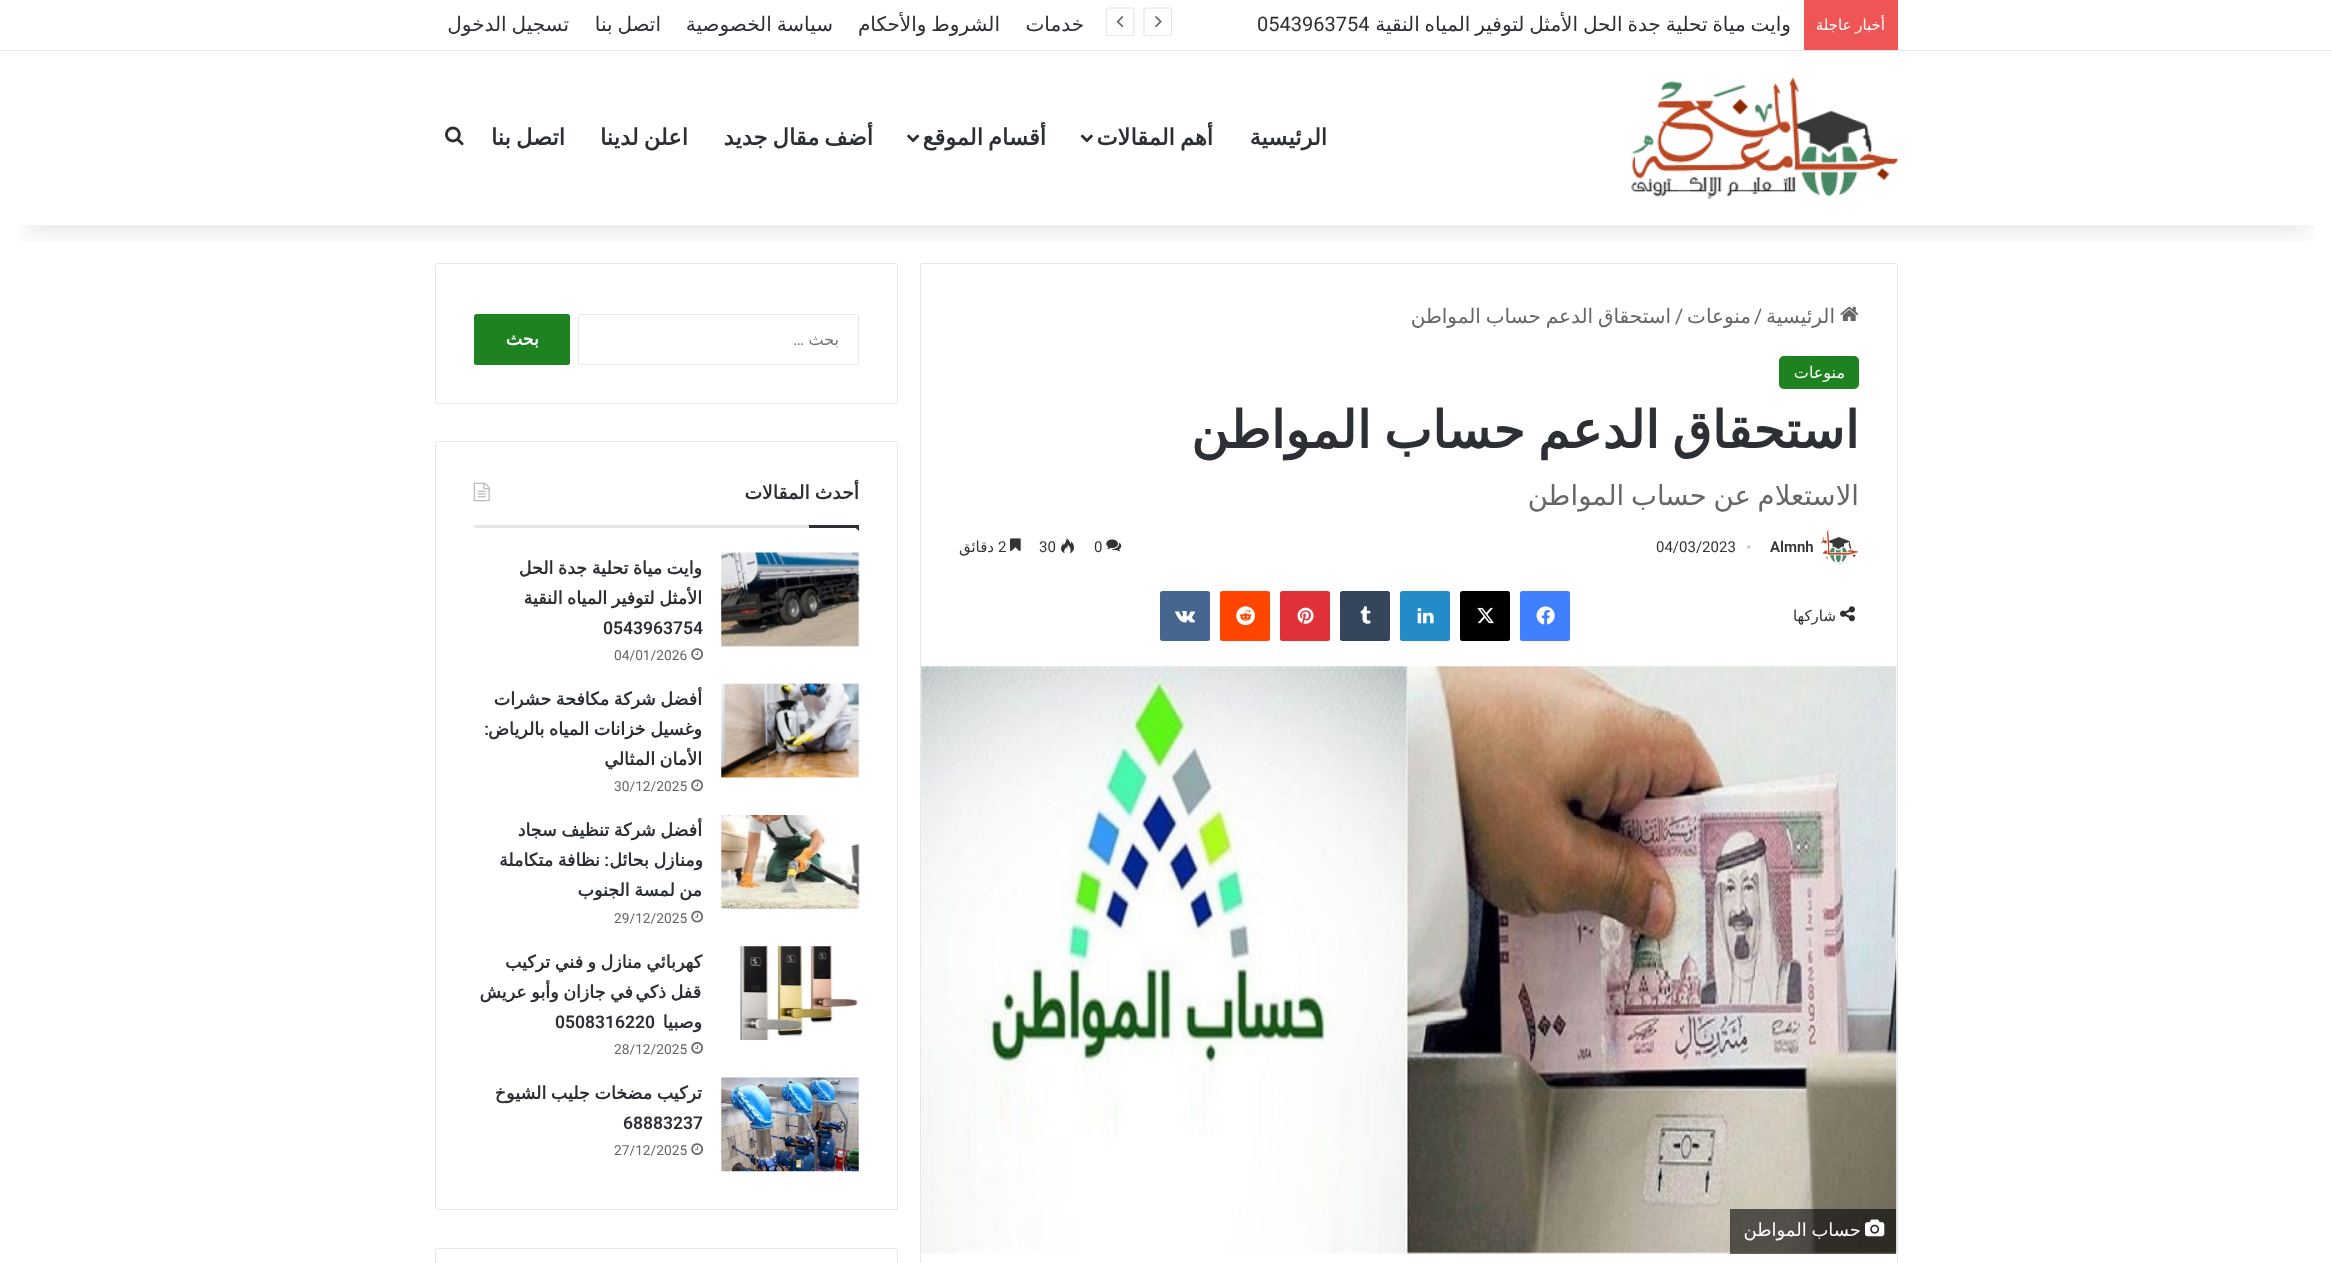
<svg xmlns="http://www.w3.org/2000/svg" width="2332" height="1263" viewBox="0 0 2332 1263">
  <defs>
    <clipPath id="clip1"><rect x="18" y="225" width="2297" height="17"/></clipPath>
    <filter id="blur1" x="-50%" y="-200%" width="200%" height="500%"><feGaussianBlur stdDeviation="12.5"/></filter>
    <clipPath id="clip2"><rect x="1256" y="0" width="535" height="50"/></clipPath>
  </defs>
  <rect width="100%" height="100%" fill="#ffffff"/>
  <rect x="920.5" y="263.5" width="977" height="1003" rx="2" fill="none" stroke="#e6e6e6"/>
  <rect x="435.5" y="263.5" width="462" height="140" rx="2" fill="none" stroke="#e6e6e6"/>
  <g clip-path="url(#clip1)">
    <rect x="25" y="56" width="2283" height="175" fill="#000000" fill-opacity="0.1" filter="url(#blur1)"/>
  </g>
  <rect x="0" y="50" width="2332" height="1" fill="#e6e6e6"/>
  <rect x="1804" y="0" width="94" height="50" fill="#f05555"/>
  <text x="1885" y="30" word-spacing="-1" font-family="DejaVu Sans" font-size="15" direction="rtl" fill="#ffffff">أخبار عاجلة</text>
  <g clip-path="url(#clip2)">
    <text x="1791" y="31" word-spacing="-1.5" font-family="DejaVu Sans" font-size="20" direction="rtl" fill="#2c2f34">وايت مياة تحلية جدة الحل الأمثل لتوفير المياه النقية</text>
  </g>
  <text x="1257" y="31" font-family="Roboto" font-size="20" fill="#2c2f34">0543963754</text>
  <path d="M1170 35.5H1146C1145 35.5 1144 35 1144 34V10C1144 9 1145 8 1146 8H1170C1171 8 1171.5 9 1171.5 10V34C1171.5 35 1171 35.5 1170 35.5Z" fill="none" stroke="#e6e6e6" stroke-width="1.2"/>
  <image x="1155" y="16" width="7" height="12" href="img1.png"/>
  <path d="M1132.5 35.5H1108.5C1107.5 35.5 1106.5 35 1106.5 34V10C1106.5 9 1107.5 8 1108.5 8H1132.5C1133.5 8 1134 9 1134 10V34C1134 35 1133.5 35.5 1132.5 35.5Z" fill="none" stroke="#e6e6e6" stroke-width="1.2"/>
  <image x="1116" y="16" width="8" height="12" href="img2.png"/>
  <text x="1084" y="31" font-family="DejaVu Sans" font-size="20" direction="rtl" fill="#2c2f34">خدمات</text>
  <text x="1000" y="31" word-spacing="-1.5" font-family="DejaVu Sans" font-size="20" direction="rtl" fill="#2c2f34">الشروط والأحكام</text>
  <text x="833" y="31" word-spacing="-1.5" font-family="DejaVu Sans" font-size="20" direction="rtl" fill="#2c2f34">سياسة الخصوصية</text>
  <text x="661" y="31" word-spacing="-1.5" font-family="DejaVu Sans" font-size="20" direction="rtl" fill="#2c2f34">اتصل بنا</text>
  <text x="569" y="31" word-spacing="-1.5" font-family="DejaVu Sans" font-size="20" direction="rtl" fill="#2c2f34">تسجيل الدخول</text>
  <image x="1631" y="77" width="267" height="122" href="img3.png"/>
  <text x="1327" y="145" font-family="DejaVu Sans" font-size="22.5" font-weight="bold" direction="rtl" fill="#2c2f34">الرئيسية</text>
  <text x="1213" y="145" word-spacing="-2" font-family="DejaVu Sans" font-size="22.5" font-weight="bold" direction="rtl" fill="#2c2f34">أهم المقالات</text>
  <image x="1080" y="134" width="13" height="9" href="img4.png"/>
  <text x="1046" y="145" word-spacing="-2" font-family="DejaVu Sans" font-size="22.5" font-weight="bold" direction="rtl" fill="#2c2f34">أقسام الموقع</text>
  <image x="907" y="134" width="13" height="9" href="img5.png"/>
  <text x="873" y="145" word-spacing="-2" font-family="DejaVu Sans" font-size="22.5" font-weight="bold" direction="rtl" fill="#2c2f34">أضف مقال جديد</text>
  <text x="688" y="145" word-spacing="-2" font-family="DejaVu Sans" font-size="22.5" font-weight="bold" direction="rtl" fill="#2c2f34">اعلن لدينا</text>
  <text x="565" y="145" word-spacing="-2" font-family="DejaVu Sans" font-size="22.5" font-weight="bold" direction="rtl" fill="#2c2f34">اتصل بنا</text>
  <image x="445" y="126" width="19" height="20" href="img6.png"/>
  <image x="1840" y="306" width="19" height="16" href="img7.png"/>
  <text x="1835" y="323" font-family="DejaVu Sans" font-size="20" direction="rtl" fill="#666666">الرئيسية</text>
  <text x="1754" y="323" font-family="Roboto" font-size="20" fill="#666666">/</text>
  <text x="1751" y="323" font-family="DejaVu Sans" font-size="20" direction="rtl" fill="#666666">منوعات</text>
  <text x="1675" y="323" font-family="Roboto" font-size="20" fill="#666666">/</text>
  <text x="1671" y="323" word-spacing="-1.5" font-family="DejaVu Sans" font-size="20" direction="rtl" fill="#666666">استحقاق الدعم حساب المواطن</text>
  <rect x="1779" y="356" width="80" height="33" rx="5" fill="#1d821f"/>
  <text x="1845" y="378" font-family="DejaVu Sans" font-size="16" direction="rtl" fill="#ffffff">منوعات</text>
  <text x="1859" y="448" word-spacing="-3.5" font-family="DejaVu Sans" font-size="51.25" font-weight="bold" direction="rtl" fill="#2c2f34">استحقاق الدعم حساب المواطن</text>
  <text x="1859" y="505" word-spacing="-2" font-family="DejaVu Sans" font-size="27.5" direction="rtl" fill="#666666">الاستعلام عن حساب المواطن</text>
  <image x="1821" y="529" width="37" height="35" href="img8.png"/>
  <text x="1770" y="552" font-family="Roboto" font-size="15" font-weight="600" fill="#333333">Almnh</text>
  <text x="1746" y="552" font-family="Liberation Serif" font-size="15" fill="#cccccc">•</text>
  <text x="1656" y="552" font-family="Roboto" font-size="15" fill="#333333">04/03/2023</text>
  <image x="1106" y="539" width="16" height="13" href="img9.png"/>
  <text x="1094" y="552" font-family="Roboto" font-size="15" fill="#333333">0</text>
  <image x="1061" y="538" width="13" height="16" href="img10.png"/>
  <text x="1039" y="552" font-family="Roboto" font-size="15" fill="#333333">30</text>
  <image x="1010" y="538" width="11" height="13" href="img11.png"/>
  <text x="998" y="552" font-family="Roboto" font-size="15" fill="#333333">2</text>
  <text x="994" y="552" font-family="DejaVu Sans" font-size="15" direction="rtl" fill="#333333">دقائق</text>
  <image x="1840" y="606" width="15" height="16" href="img12.png"/>
  <text x="1836" y="621" font-family="DejaVu Sans" font-size="15" direction="rtl" fill="#2c2f34">شاركها</text>
  <rect x="1520" y="591" width="50" height="50" rx="2.5" fill="#4080ff"/>
  <image x="1536" y="606" width="19" height="19" href="img13.png"/>
  <rect x="1460" y="591" width="50" height="50" rx="2.5" fill="#000000"/>
  <image x="1477" y="607" width="17" height="17" href="img14.png"/>
  <rect x="1400" y="591" width="50" height="50" rx="2.5" fill="#238cc8"/>
  <image x="1417" y="607" width="17" height="17" href="img15.png"/>
  <rect x="1340" y="591" width="50" height="50" rx="2.5" fill="#35465c"/>
  <image x="1360" y="606" width="11" height="18" href="img16.png"/>
  <rect x="1280" y="591" width="50" height="50" rx="2.5" fill="#e13138"/>
  <image x="1297" y="607" width="17" height="17" href="img17.png"/>
  <rect x="1220" y="591" width="50" height="50" rx="2.5" fill="#ff4500"/>
  <image x="1236" y="606" width="19" height="20" href="img18.png"/>
  <rect x="1160" y="591" width="50" height="50" rx="2.5" fill="#45668e"/>
  <image x="1175" y="610" width="21" height="13" href="img19.png"/>
  <image x="921" y="666" width="976" height="588" href="img20.png"/>
  <rect x="1730" y="1209" width="166" height="45" fill="#000000" fill-opacity="0.6"/>
  <image x="1865" y="1219" width="20" height="18" href="img21.png"/>
  <text x="1861" y="1236" word-spacing="-1" font-family="DejaVu Sans" font-size="18" direction="rtl" fill="#ffffff">حساب المواطن</text>
  <rect x="578.5" y="314.5" width="280" height="50" rx="2" fill="none" stroke="#e6e6e6"/>
  <text x="839" y="345" font-family="DejaVu Sans" font-size="16" direction="rtl" fill="#757575">بحث</text>
  <text x="804" y="345" font-family="Roboto" font-size="16" direction="rtl" fill="#757575">…</text>
  <rect x="474" y="314" width="96" height="51" rx="2.5" fill="#1d821f"/>
  <text x="539" y="345" font-family="DejaVu Sans" font-size="17.5" font-weight="bold" direction="rtl" fill="#ffffff">بحث</text>
  <rect x="435.5" y="441.5" width="462" height="768" rx="2" fill="none" stroke="#e6e6e6"/>
  <rect x="474" y="525" width="335" height="3" fill="#e6e6e6"/>
  <text x="859" y="499" word-spacing="-1" font-family="DejaVu Sans" font-size="18.75" font-weight="bold" direction="rtl" fill="#2c2f34">أحدث المقالات</text>
  <image x="473" y="482" width="17" height="20" href="img22.png"/>
  <path d="M852.5 525H859V531Z" fill="#2c2f34"/>
  <rect x="809" y="525" width="50" height="3" fill="#2c2f34"/>
  <image x="721" y="552" width="139" height="95" href="img23.png"/>
  <text x="702" y="574" word-spacing="-1" font-family="DejaVu Sans" font-size="17.5" font-weight="bold" direction="rtl" fill="#2c2f34">وايت مياة تحلية جدة الحل</text>
  <text x="702" y="604" word-spacing="-1" font-family="DejaVu Sans" font-size="17.5" font-weight="bold" direction="rtl" fill="#2c2f34">الأمثل لتوفير المياه النقية</text>
  <text x="603" y="634" font-family="Roboto" font-size="17.5" font-weight="600" fill="#2c2f34">0543963754</text>
  <image x="691" y="648" width="12" height="12" href="img24.png"/>
  <text x="614" y="660" font-family="Roboto" font-size="13.75" fill="#666666">04/01/2026</text>
  <image x="721" y="683" width="139" height="95" href="img25.png"/>
  <text x="702" y="705" word-spacing="-1" font-family="DejaVu Sans" font-size="17.5" font-weight="bold" direction="rtl" fill="#2c2f34">أفضل شركة مكافحة حشرات</text>
  <text x="702" y="735" word-spacing="-1" font-family="DejaVu Sans" font-size="17.5" font-weight="bold" direction="rtl" fill="#2c2f34">وغسيل خزانات المياه بالرياض</text>
  <text x="489" y="735" font-family="Roboto" font-size="17.5" font-weight="600" direction="rtl" fill="#2c2f34">:</text>
  <text x="702" y="765" word-spacing="-1" font-family="DejaVu Sans" font-size="17.5" font-weight="bold" direction="rtl" fill="#2c2f34">الأمان المثالي</text>
  <image x="691" y="779" width="12" height="13" href="img26.png"/>
  <text x="614" y="791" font-family="Roboto" font-size="13.75" fill="#666666">30/12/2025</text>
  <image x="721" y="815" width="139" height="94" href="img27.png"/>
  <text x="702" y="836" word-spacing="-1" font-family="DejaVu Sans" font-size="17.5" font-weight="bold" direction="rtl" fill="#2c2f34">أفضل شركة تنظيف سجاد</text>
  <text x="703" y="866" word-spacing="-1" font-family="DejaVu Sans" font-size="17.5" font-weight="bold" direction="rtl" fill="#2c2f34">ومنازل بحائل</text>
  <text x="609" y="866" font-family="Roboto" font-size="17.5" font-weight="600" direction="rtl" fill="#2c2f34">:</text>
  <text x="600" y="866" word-spacing="-1" font-family="DejaVu Sans" font-size="17.5" font-weight="bold" direction="rtl" fill="#2c2f34">نظافة متكاملة</text>
  <text x="702" y="896" word-spacing="-1" font-family="DejaVu Sans" font-size="17.5" font-weight="bold" direction="rtl" fill="#2c2f34">من لمسة الجنوب</text>
  <image x="691" y="910" width="12" height="13" href="img28.png"/>
  <text x="614" y="923" font-family="Roboto" font-size="13.75" fill="#666666">29/12/2025</text>
  <image x="739" y="946" width="120" height="94" href="img29.png"/>
  <text x="702" y="968" word-spacing="-1" font-family="DejaVu Sans" font-size="17.5" font-weight="bold" direction="rtl" fill="#2c2f34">كهربائي منازل و فني تركيب</text>
  <text x="701" y="998" word-spacing="-1" font-family="DejaVu Sans" font-size="17.5" font-weight="bold" direction="rtl" fill="#2c2f34">قفل ذكي</text>
  <text x="633" y="998" word-spacing="-1" font-family="DejaVu Sans" font-size="17.5" font-weight="bold" direction="rtl" fill="#2c2f34">في جازان وأبو عريش</text>
  <text x="702" y="1028" font-family="DejaVu Sans" font-size="17.5" font-weight="bold" direction="rtl" fill="#2c2f34">وصبيا</text>
  <text x="555" y="1028" font-family="Roboto" font-size="17.5" font-weight="600" fill="#2c2f34">0508316220</text>
  <image x="691" y="1042" width="12" height="12" href="img30.png"/>
  <text x="614" y="1054" font-family="Roboto" font-size="13.75" fill="#666666">28/12/2025</text>
  <image x="721" y="1077" width="138" height="95" href="img31.png"/>
  <text x="702" y="1099" word-spacing="-1" font-family="DejaVu Sans" font-size="17.5" font-weight="bold" direction="rtl" fill="#2c2f34">تركيب مضخات جليب الشيوخ</text>
  <text x="623" y="1129" font-family="Roboto" font-size="17.5" font-weight="600" fill="#2c2f34">68883237</text>
  <image x="691" y="1143" width="12" height="12" href="img24.png"/>
  <text x="614" y="1155" font-family="Roboto" font-size="13.75" fill="#666666">27/12/2025</text>
  <rect x="435.5" y="1248.5" width="462" height="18" rx="2" fill="none" stroke="#e6e6e6"/>
</svg>
